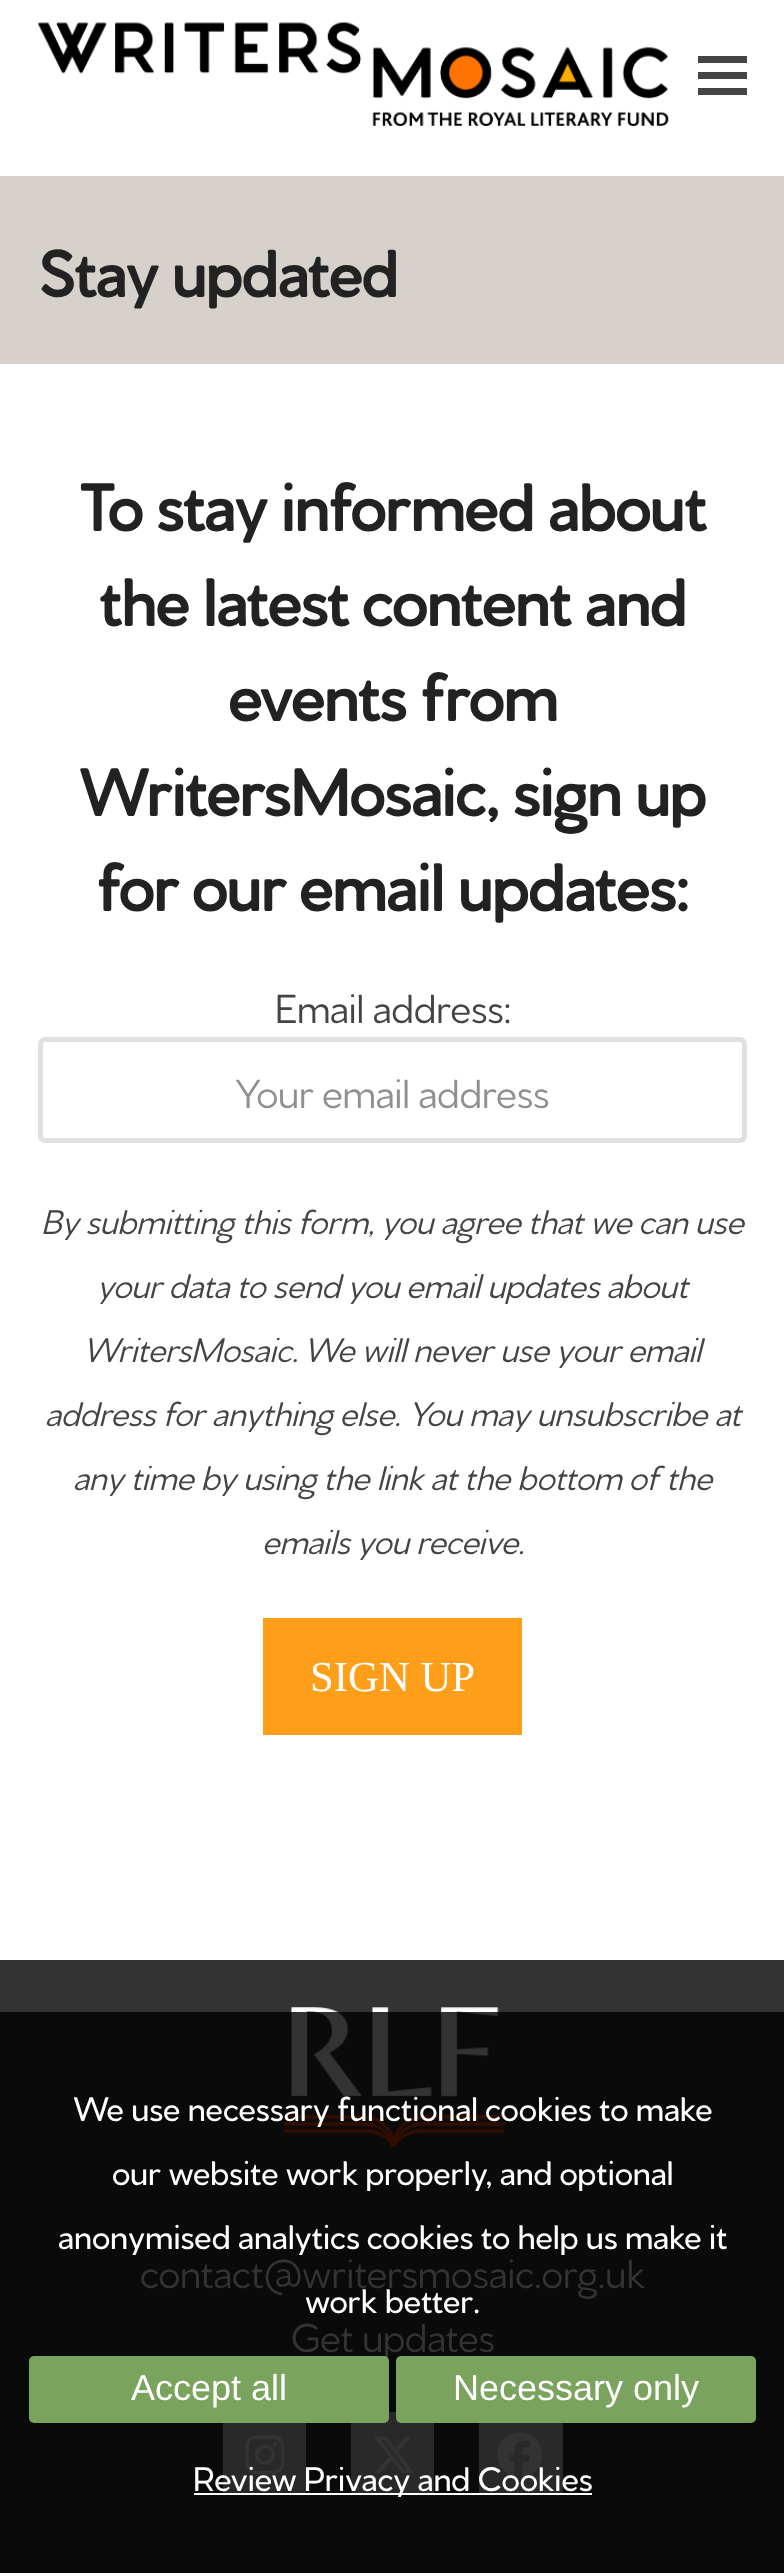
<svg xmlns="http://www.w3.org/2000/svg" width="784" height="2573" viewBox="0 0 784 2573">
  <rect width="100%" height="100%" fill="#ffffff"/>
  <image x="38" y="22" width="631" height="104" href="img1.png"/>
  <rect x="698" y="72" width="49" height="7" fill="#444444"/>
  <rect x="698" y="56" width="49" height="7" fill="#444444"/>
  <rect x="698" y="88" width="49" height="7" fill="#444444"/>
  <rect x="0" y="176" width="784" height="188" fill="#d6d1ca"/>
  <text x="39" y="297" font-family="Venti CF" font-size="68.5" font-weight="bold" fill="#222222">Stay updated</text>
  <text x="79" y="531" font-family="Venti CF" font-size="69" font-weight="bold" fill="#222222">To stay informed about</text>
  <text x="99" y="626" font-family="Venti CF" font-size="69" font-weight="bold" fill="#222222">the latest content and</text>
  <text x="228" y="721" font-family="Venti CF" font-size="69" font-weight="bold" fill="#222222">events from</text>
  <text x="79" y="816" font-family="Venti CF" font-size="69" font-weight="bold" fill="#222222">WritersMosaic, sign up</text>
  <text x="97" y="911" font-family="Venti CF" font-size="69" font-weight="bold" fill="#222222">for our email updates:</text>
  <text x="275" y="1023" font-family="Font" font-size="42.75" fill="#444444">Email address:</text>
  <rect x="40.5" y="1039.5" width="704" height="101" rx="4.5" fill="none" stroke="#e0e0e0" stroke-width="5"/>
  <text x="235" y="1108" font-family="Font" font-size="42.75" fill="#909090">Your email address</text>
  <text x="41" y="1234" font-family="Font" font-size="36" font-style="italic" fill="#444444">By submitting this form, you agree that we can use</text>
  <text x="97" y="1298" font-family="Font" font-size="36" font-style="italic" fill="#444444">your data to send you email updates about</text>
  <text x="83" y="1362" font-family="Font" font-size="36" font-style="italic" fill="#444444">WritersMosaic. We will never use your email</text>
  <text x="45" y="1426" font-family="Font" font-size="36" font-style="italic" fill="#444444">address for anything else. You may unsubscribe at</text>
  <text x="73" y="1490" font-family="Font" font-size="36" font-style="italic" fill="#444444">any time by using the link at the bottom of the</text>
  <text x="262" y="1554" font-family="Font" font-size="36" font-style="italic" fill="#444444">emails you receive.</text>
  <rect x="263" y="1618" width="259" height="117" fill="#ff9e18"/>
  <text x="310" y="1691" font-family="Liberation Serif" font-size="42.75" fill="#ffffff">SIGN UP</text>
  <rect x="0" y="1960" width="784" height="52" fill="#333333"/>
  <rect x="0" y="2012" width="784" height="561" fill="#0a0a0a"/>
  <image x="283" y="2007" width="222" height="141" href="img2.png"/>
  <text x="140" y="2288" font-family="Font" font-size="42.6" fill="#333333">contact@writersmosaic.org.uk</text>
  <text x="291" y="2352" font-family="Font" font-size="42.6" fill="#333333">Get updates</text>
  <rect x="223" y="2423" width="83" height="70" fill="#292929"/>
  <image x="245" y="2435" width="39" height="40" href="img3.png"/>
  <rect x="351" y="2412" width="83" height="81" fill="#292929"/>
  <image x="373" y="2436" width="41" height="37" href="img4.png"/>
  <rect x="479" y="2423" width="84" height="70" fill="#292929"/>
  <image x="497" y="2432" width="45" height="45" href="img5.png"/>
  <text x="73" y="2121" font-family="Venti CF" font-size="36" font-weight="500" fill="#ffffff">We use necessary functional cookies to make</text>
  <text x="112" y="2185" font-family="Venti CF" font-size="36" font-weight="500" fill="#ffffff">our website work properly, and optional</text>
  <text x="58" y="2249" font-family="Venti CF" font-size="36" font-weight="500" fill="#ffffff">anonymised analytics cookies to help us make it</text>
  <text x="305" y="2313" font-family="Venti CF" font-size="36" font-weight="500" fill="#ffffff">work better.</text>
  <rect x="29" y="2356" width="360" height="67" rx="5" fill="#7aa35d"/>
  <text x="131" y="2400" font-family="Liberation Sans" font-size="36" fill="#ffffff">Accept all</text>
  <rect x="396" y="2356" width="360" height="67" rx="5" fill="#7aa35d"/>
  <text x="453" y="2400" font-family="Liberation Sans" font-size="36" fill="#ffffff">Necessary only</text>
  <rect x="194" y="2493" width="398" height="2" fill="#ffffff"/>
  <text x="193" y="2491" font-family="Venti CF" font-size="36" font-weight="500" fill="#ffffff">Review Privacy and Cookies</text>
</svg>
